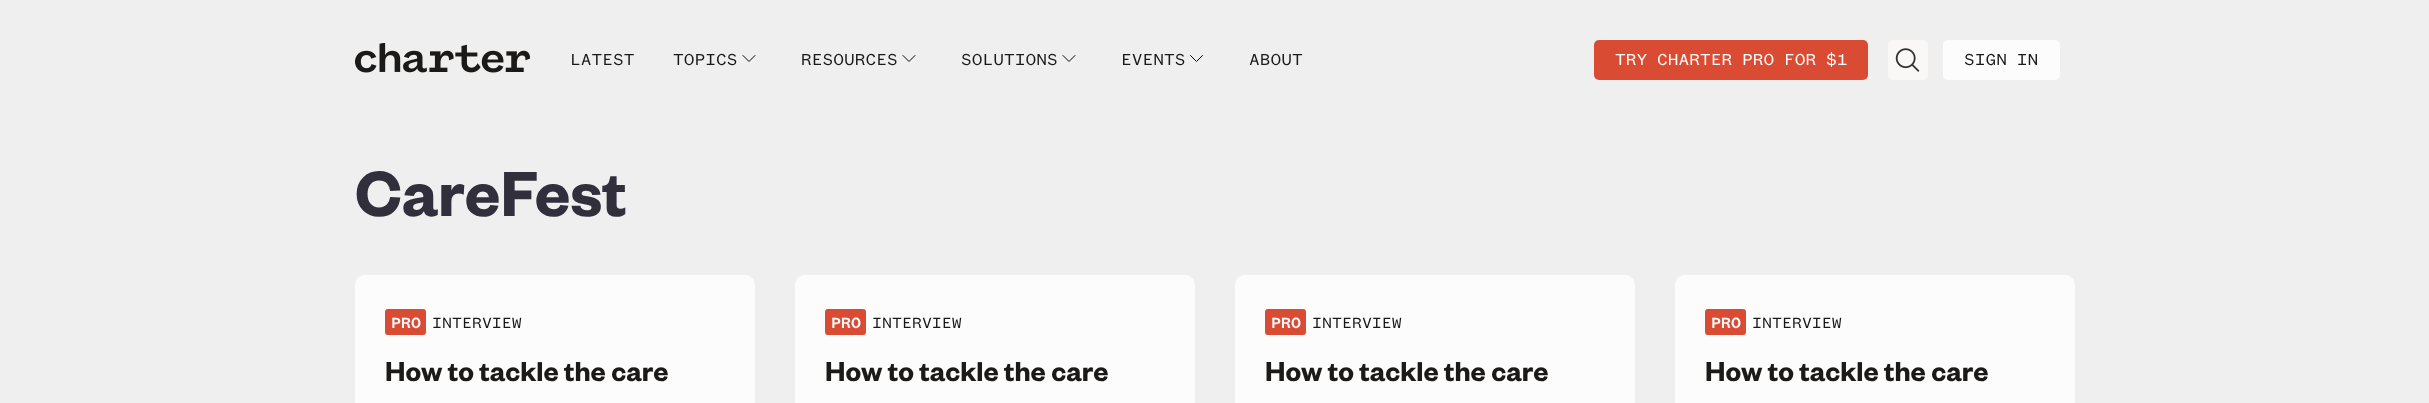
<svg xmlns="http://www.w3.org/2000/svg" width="2429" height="403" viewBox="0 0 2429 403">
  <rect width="100%" height="100%" fill="#efefef"/>
  <image x="355" y="43" width="175" height="30" href="img1.png"/>
  <text x="570" y="65" font-family="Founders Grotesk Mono" font-size="17.5" fill="#1b1a18">LATEST</text>
  <text x="673" y="65" font-family="Founders Grotesk Mono" font-size="17.5" fill="#1b1a18">TOPICS</text>
  <path d="M743 55.5L749 61.5L755 55.5" fill="none" stroke="#060708" stroke-linecap="round"/>
  <text x="801" y="65" font-family="Founders Grotesk Mono" font-size="17.5" fill="#1b1a18">RESOURCES</text>
  <path d="M903 55.5L909 61.5L915 55.5" fill="none" stroke="#060708" stroke-linecap="round"/>
  <text x="961" y="65" font-family="Founders Grotesk Mono" font-size="17.5" fill="#1b1a18">SOLUTIONS</text>
  <path d="M1063 55.5L1069 61.5L1075 55.5" fill="none" stroke="#060708" stroke-linecap="round"/>
  <text x="1121" y="65" font-family="Founders Grotesk Mono" font-size="17.5" fill="#1b1a18">EVENTS</text>
  <path d="M1190.5 55.5L1196.5 61.5L1202.5 55.5" fill="none" stroke="#060708" stroke-linecap="round"/>
  <text x="1249" y="65" font-family="Founders Grotesk Mono" font-size="17.5" fill="#1b1a18">ABOUT</text>
  <rect x="1594" y="40" width="274" height="40" rx="5" fill="#d94c33"/>
  <text x="1615" y="65" word-spacing="-1" font-family="Founders Grotesk Mono" font-size="17.5" fill="#fcfcfc">TRY CHARTER PRO FOR $1</text>
  <rect x="1888" y="40" width="40" height="40" rx="5" fill="#f9f8f7"/>
  <image x="1895" y="48" width="25" height="24" href="img2.png"/>
  <rect x="1943" y="40" width="117" height="40" rx="5" fill="#fcfcfc"/>
  <text x="1964" y="65" word-spacing="-1" font-family="Founders Grotesk Mono" font-size="17.5" fill="#1b1a18">SIGN IN</text>
  <text x="355" y="216" font-family="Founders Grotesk" font-size="70" font-weight="600" fill="#322f3d">CareFest</text>
  <rect x="355" y="275" width="400" height="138" rx="10" fill="#fcfcfc"/>
  <rect x="385.5" y="309.5" width="40" height="25" rx="2" fill="#d94c33" stroke="#d94c33"/>
  <text x="391" y="328" font-family="Founders Grotesk Mono" font-size="16.25" font-weight="500" fill="#fcfcfc">PRO</text>
  <text x="432" y="328" font-family="Founders Grotesk Mono" font-size="16.25" fill="#1b1a18">INTERVIEW</text>
  <text x="385" y="381" font-family="Founders Grotesk" font-size="30" font-weight="600" fill="#1b1a18">How to tackle the care</text>
  <rect x="795" y="275" width="400" height="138" rx="10" fill="#fcfcfc"/>
  <rect x="825.5" y="309.5" width="40" height="25" rx="2" fill="#d94c33" stroke="#d94c33"/>
  <text x="831" y="328" font-family="Founders Grotesk Mono" font-size="16.25" font-weight="500" fill="#fcfcfc">PRO</text>
  <text x="872" y="328" font-family="Founders Grotesk Mono" font-size="16.25" fill="#1b1a18">INTERVIEW</text>
  <text x="825" y="381" font-family="Founders Grotesk" font-size="30" font-weight="600" fill="#1b1a18">How to tackle the care</text>
  <rect x="1235" y="275" width="400" height="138" rx="10" fill="#fcfcfc"/>
  <rect x="1265.5" y="309.5" width="40" height="25" rx="2" fill="#d94c33" stroke="#d94c33"/>
  <text x="1271" y="328" font-family="Founders Grotesk Mono" font-size="16.25" font-weight="500" fill="#fcfcfc">PRO</text>
  <text x="1312" y="328" font-family="Founders Grotesk Mono" font-size="16.25" fill="#1b1a18">INTERVIEW</text>
  <text x="1265" y="381" font-family="Founders Grotesk" font-size="30" font-weight="600" fill="#1b1a18">How to tackle the care</text>
  <rect x="1675" y="275" width="400" height="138" rx="10" fill="#fcfcfc"/>
  <rect x="1705.5" y="309.5" width="40" height="25" rx="2" fill="#d94c33" stroke="#d94c33"/>
  <text x="1711" y="328" font-family="Founders Grotesk Mono" font-size="16.25" font-weight="500" fill="#fcfcfc">PRO</text>
  <text x="1752" y="328" font-family="Founders Grotesk Mono" font-size="16.25" fill="#1b1a18">INTERVIEW</text>
  <text x="1705" y="381" font-family="Founders Grotesk" font-size="30" font-weight="600" fill="#1b1a18">How to tackle the care</text>
</svg>
